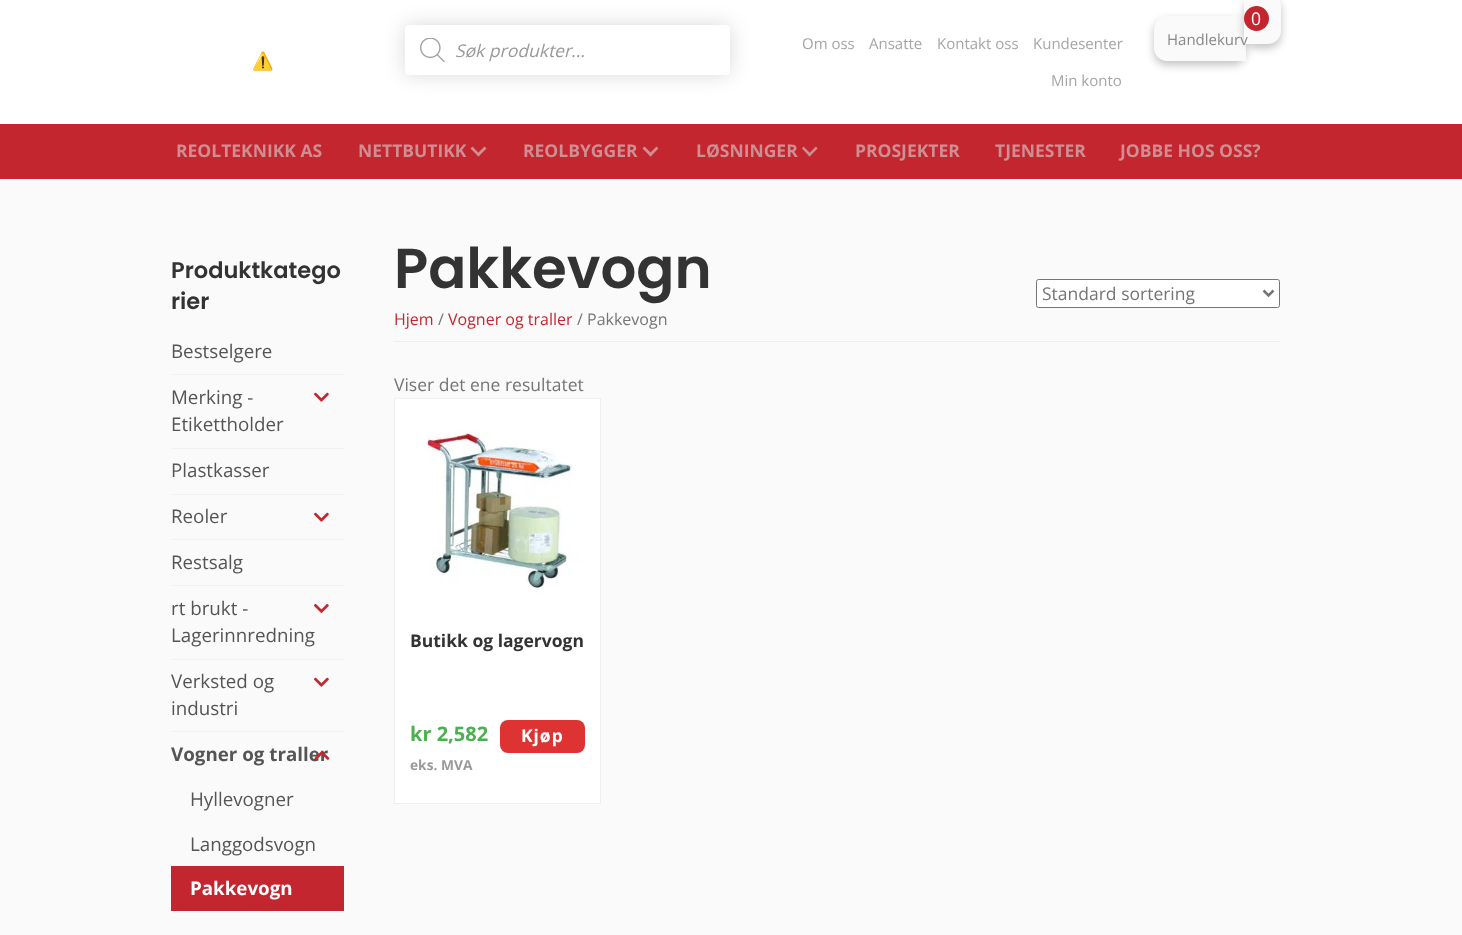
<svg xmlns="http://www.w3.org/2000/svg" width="1462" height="935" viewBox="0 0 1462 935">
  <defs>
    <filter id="blur1" x="-50%" y="-200%" width="200%" height="500%"><feGaussianBlur stdDeviation="4"/></filter>
    <filter id="blur2" x="-50%" y="-200%" width="200%" height="500%"><feGaussianBlur stdDeviation="10"/></filter>
  </defs>
  <rect width="100%" height="100%" fill="#ffffff"/>
  <text x="252" y="67" font-family="Noto Color Emoji" font-size="17.5" fill="#757575">⚠️</text>
  <rect x="1154" y="20" width="92" height="45" rx="13" fill="#000000" fill-opacity="0.24" filter="url(#blur1)"/>
  <path d="M1167 16H1246V61H1167C1160 61 1154 55 1154 48V29C1154 22 1160 16 1167 16Z" fill="#fafafa"/>
  <rect x="1244" y="-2" width="37" height="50" rx="13" fill="#000000" fill-opacity="0.24" filter="url(#blur1)"/>
  <path d="M1244-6H1268C1275-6 1281 0 1281 7V31C1281 38 1275 44 1268 44H1244Z" fill="#fafafa"/>
  <circle cx="1256.5" cy="18.5" r="12.5" fill="#c4262f"/>
  <text x="1251" y="25" font-family="Open Sans" font-size="17.5" fill="#ffffff">0</text>
  <text x="1167" y="45" font-family="Open Sans" font-size="15" fill="#888888">Handlekurv</text>
  <rect x="405" y="25" width="325" height="50" rx="4" fill="#000000" fill-opacity="0.15" filter="url(#blur2)"/>
  <rect x="405" y="25" width="325" height="50" rx="4" fill="#ffffff"/>
  <image x="420" y="38" width="25" height="25" href="img1.png"/>
  <text x="455" y="57" font-family="Open Sans" font-size="17.5" font-style="italic" fill="#999999">Søk produkter...</text>
  <text x="802" y="49" font-family="Open Sans" font-size="15" fill="#a5a5a5">Om oss</text>
  <text x="869" y="49" font-family="Open Sans" font-size="15" fill="#a5a5a5">Ansatte</text>
  <text x="937" y="49" font-family="Open Sans" font-size="15" fill="#a5a5a5">Kontakt oss</text>
  <text x="1033" y="49" font-family="Open Sans" font-size="15" fill="#a5a5a5">Kundesenter</text>
  <text x="1051" y="86" font-family="Open Sans" font-size="15" fill="#a5a5a5">Min konto</text>
  <rect x="0" y="124" width="1462" height="55" fill="#c4262f"/>
  <text x="176" y="157" font-family="Open Sans" font-size="17.5" font-weight="bold" fill="#ce8e92">REOLTEKNIKK AS</text>
  <text x="358" y="157" font-family="Open Sans" font-size="17.5" font-weight="bold" fill="#ce8e92">NETTBUTIKK</text>
  <path d="M484.5 146.5L486.5 148.5L478.5 156.5L476.5 154.5Z" fill="#ce8e92"/>
  <path d="M472.5 146.5L480 154.5L478.5 156.5L470.5 148.5Z" fill="#ce8e92"/>
  <text x="523" y="157" font-family="Open Sans" font-size="17.5" font-weight="bold" fill="#ce8e92">REOLBYGGER</text>
  <path d="M656.5 146.5L658.5 148.5L650.5 156.5L648.5 154.5Z" fill="#ce8e92"/>
  <path d="M644.5 146.5L652.5 154.5L650.5 156.5L642.5 148.5Z" fill="#ce8e92"/>
  <text x="696" y="157" font-family="Open Sans" font-size="17.5" font-weight="bold" fill="#ce8e92">LØSNINGER</text>
  <path d="M816 146.5L817.5 148.5L809.5 156.5L808 154.5Z" fill="#ce8e92"/>
  <path d="M803.5 146.5L811.5 154.5L809.5 156.5L802 148.5Z" fill="#ce8e92"/>
  <text x="855" y="157" font-family="Open Sans" font-size="17.5" font-weight="bold" fill="#ce8e92">PROSJEKTER</text>
  <text x="995" y="157" font-family="Open Sans" font-size="17.5" font-weight="bold" fill="#ce8e92">TJENESTER</text>
  <text x="1120" y="157" font-family="Open Sans" font-size="17.5" font-weight="bold" fill="#ce8e92">JOBBE HOS OSS?</text>
  <rect x="0" y="179" width="1462" height="756" fill="#fafafa"/>
  <text x="171" y="278" font-family="Poppins" font-size="22.5" font-weight="600" fill="#333333">Produktkatego</text>
  <text x="171" y="309" font-family="Poppins" font-size="22.5" font-weight="600" fill="#333333">rier</text>
  <rect x="171" y="374" width="173" height="1" fill="#f1f1f1"/>
  <text x="171" y="358" font-family="Open Sans" font-size="18.75" fill="#555555">Bestselgere</text>
  <rect x="171" y="448" width="173" height="1" fill="#f1f1f1"/>
  <text x="171" y="404" font-family="Open Sans" font-size="18.75" fill="#555555">Merking -</text>
  <text x="171" y="431" font-family="Open Sans" font-size="18.75" fill="#555555">Etikettholder</text>
  <image x="314" y="392" width="15" height="10" href="img2.png"/>
  <rect x="171" y="494" width="173" height="1" fill="#f1f1f1"/>
  <text x="171" y="477" font-family="Open Sans" font-size="18.75" fill="#555555">Plastkasser</text>
  <rect x="171" y="539" width="173" height="1" fill="#f1f1f1"/>
  <text x="171" y="523" font-family="Open Sans" font-size="18.75" fill="#555555">Reoler</text>
  <image x="314" y="512" width="15" height="10" href="img2.png"/>
  <rect x="171" y="585" width="173" height="1" fill="#f1f1f1"/>
  <text x="171" y="569" font-family="Open Sans" font-size="18.75" fill="#555555">Restsalg</text>
  <rect x="171" y="659" width="173" height="1" fill="#f1f1f1"/>
  <text x="171" y="615" font-family="Open Sans" font-size="18.75" fill="#555555">rt brukt -</text>
  <text x="171" y="642" font-family="Open Sans" font-size="18.75" fill="#555555">Lagerinnredning</text>
  <image x="314" y="604" width="15" height="9" href="img3.png"/>
  <rect x="171" y="731" width="173" height="1" fill="#f1f1f1"/>
  <text x="171" y="688" font-family="Open Sans" font-size="18.75" fill="#555555">Verksted og</text>
  <text x="171" y="715" font-family="Open Sans" font-size="18.75" fill="#555555">industri</text>
  <image x="314" y="677" width="15" height="10" href="img2.png"/>
  <text x="171" y="761" font-family="Open Sans" font-size="18.75" font-weight="bold" fill="#555555">Vogner og traller</text>
  <image x="314" y="750" width="16" height="10" href="img4.png"/>
  <text x="190" y="806" font-family="Open Sans" font-size="18.75" fill="#555555">Hyllevogner</text>
  <text x="190" y="851" font-family="Open Sans" font-size="18.75" fill="#555555">Langgodsvogn</text>
  <rect x="171" y="866" width="173" height="45" fill="#c4262f"/>
  <text x="190" y="895" font-family="Open Sans" font-size="18.75" font-weight="bold" fill="#ffffff">Pakkevogn</text>
  <text x="394" y="288" font-family="Poppins" font-size="56.25" font-weight="600" fill="#333333">Pakkevogn</text>
  <rect x="1036.5" y="279.5" width="243" height="28" rx="2" fill="#ffffff" stroke="#767676"/>
  <path d="M1263.5 290.5L1268.5 295.5L1273.5 290.5" fill="none" stroke="#757575" stroke-width="2.5"/>
  <text x="1042" y="300" font-family="Open Sans" font-size="17.5" fill="#757575">Standard sortering</text>
  <text x="394" y="391" font-family="Open Sans" font-size="17.5" fill="#757575">Viser det ene resultatet</text>
  <rect x="395" y="594" width="205" height="209" fill="#ffffff"/>
  <rect x="394.5" y="398.5" width="206" height="405" fill="none" stroke="#eeeeee"/>
  <image x="395" y="398" width="205" height="196" href="img5.png"/>
  <text x="410" y="647" font-family="Open Sans" font-size="17.5" font-weight="bold" fill="#333333">Butikk og lagervogn</text>
  <text x="410" y="741" font-family="Open Sans" font-size="20" font-weight="bold" fill="#4caf50">kr 2,582</text>
  <text x="410" y="770" font-family="Open Sans" font-size="13.75" font-weight="bold" fill="#999999">eks. MVA</text>
  <rect x="500" y="720" width="85" height="33" rx="8" fill="#dd3333"/>
  <text x="521" y="742" font-family="Noto Sans" font-size="17.5" font-weight="bold" letter-spacing="1" fill="#ffffff">Kjøp</text>
  <text x="394" y="325" font-family="Open Sans" font-size="16" fill="#c4262f">Hjem</text>
  <text x="438" y="325" font-family="Open Sans" font-size="16" fill="#757575">/</text>
  <text x="448" y="325" font-family="Open Sans" font-size="16" fill="#c4262f">Vogner og traller</text>
  <text x="577" y="325" font-family="Open Sans" font-size="16" fill="#757575">/ Pakkevogn</text>
  <rect x="394" y="341" width="886" height="1" fill="#eeeeee"/>
</svg>
